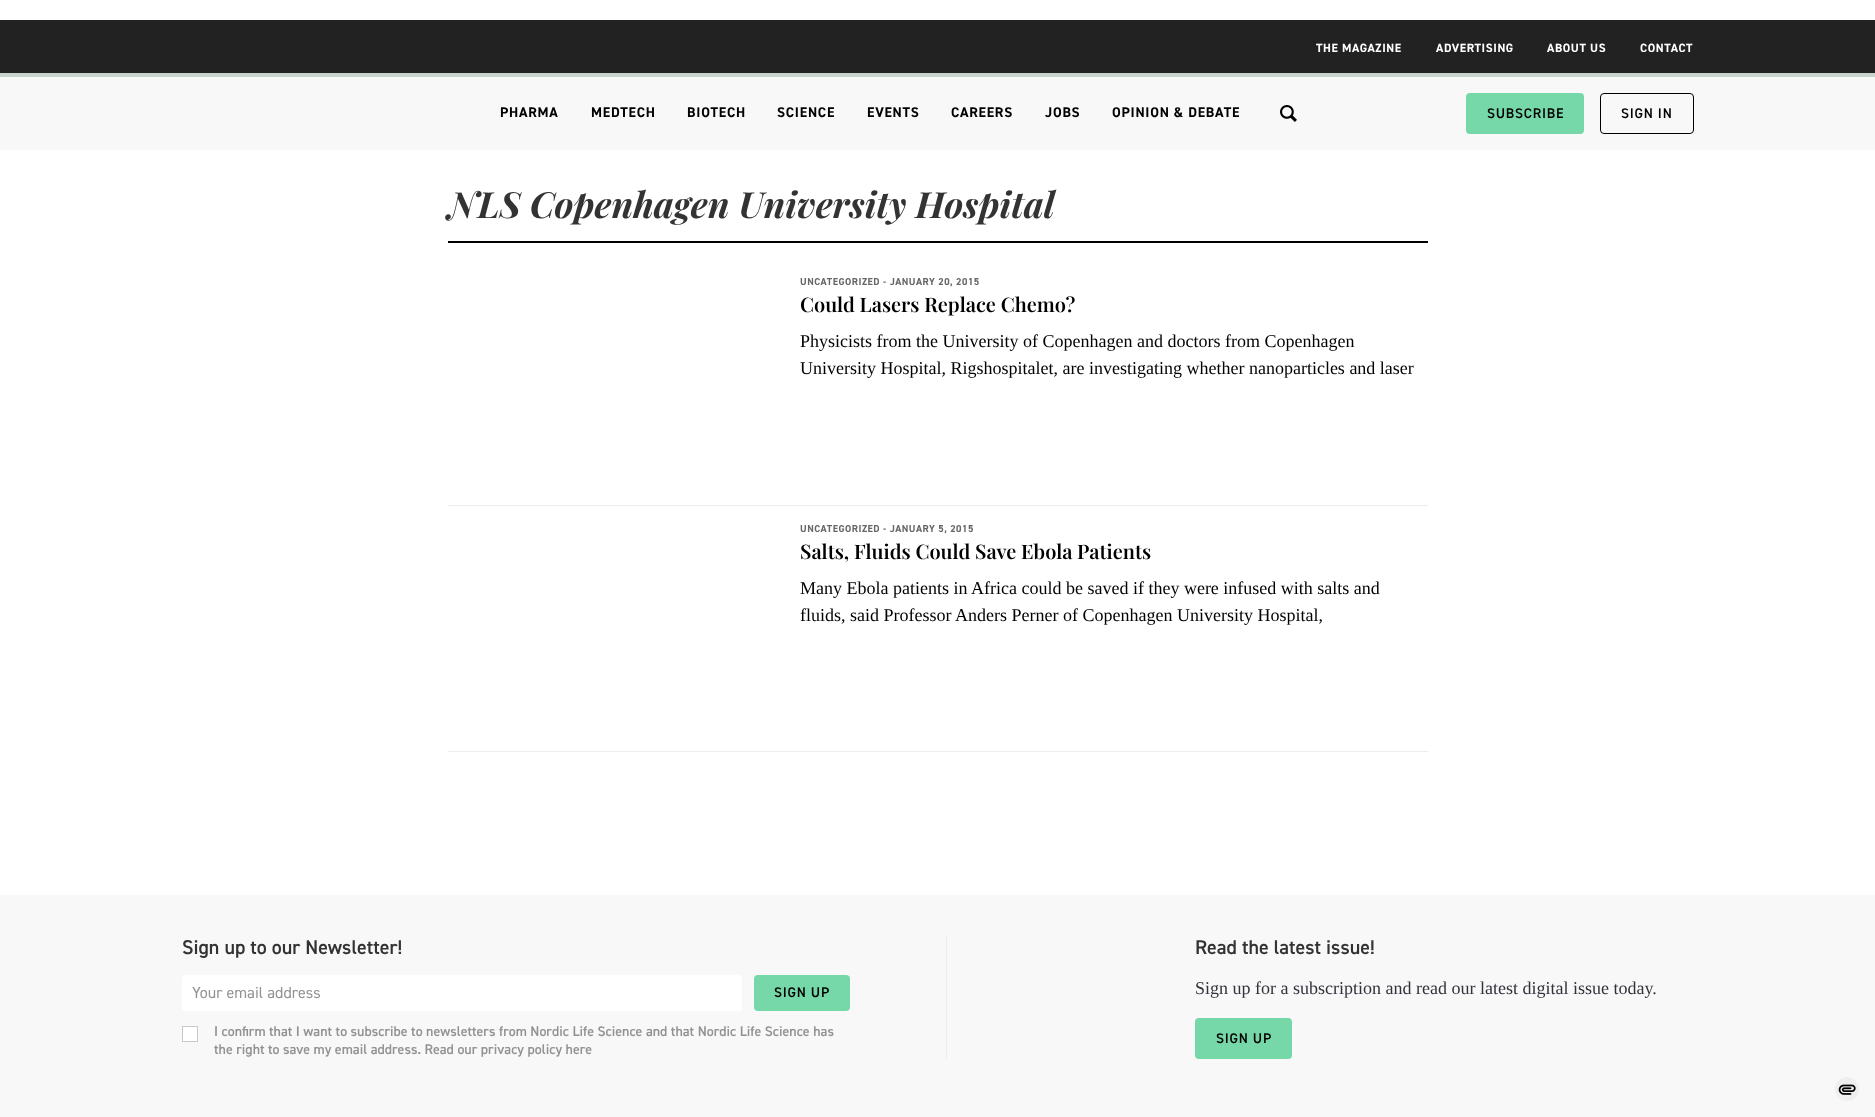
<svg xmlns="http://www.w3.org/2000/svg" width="1875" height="1117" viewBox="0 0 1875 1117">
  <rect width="100%" height="100%" fill="#ffffff"/>
  <rect x="0" y="20" width="1875" height="53" fill="#222222"/>
  <text x="1316" y="52" font-family="'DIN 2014'" font-size="12" font-weight="bold" letter-spacing="0.6" fill="#ffffff">THE MAGAZINE</text>
  <text x="1436" y="52" font-family="'DIN 2014'" font-size="12" font-weight="bold" letter-spacing="0.6" fill="#ffffff">ADVERTISING</text>
  <text x="1547" y="52" font-family="'DIN 2014'" font-size="12" font-weight="bold" letter-spacing="0.6" fill="#ffffff">ABOUT US</text>
  <text x="1640" y="52" font-family="'DIN 2014'" font-size="12" font-weight="bold" letter-spacing="0.6" fill="#ffffff">CONTACT</text>
  <rect x="0" y="77" width="1875" height="73" fill="#f8f8f8"/>
  <rect x="0" y="73" width="1875" height="4" fill="#c8d5cd"/>
  <text x="500" y="117" font-family="'DIN 2014'" font-size="14" font-weight="bold" letter-spacing="0.75" fill="#000000">PHARMA</text>
  <text x="591" y="117" font-family="'DIN 2014'" font-size="14" font-weight="bold" letter-spacing="0.75" fill="#000000">MEDTECH</text>
  <text x="687" y="117" font-family="'DIN 2014'" font-size="14" font-weight="bold" letter-spacing="0.75" fill="#000000">BIOTECH</text>
  <text x="777" y="117" font-family="'DIN 2014'" font-size="14" font-weight="bold" letter-spacing="0.75" fill="#000000">SCIENCE</text>
  <text x="867" y="117" font-family="'DIN 2014'" font-size="14" font-weight="bold" letter-spacing="0.75" fill="#000000">EVENTS</text>
  <text x="951" y="117" font-family="'DIN 2014'" font-size="14" font-weight="bold" letter-spacing="0.75" fill="#000000">CAREERS</text>
  <text x="1045" y="117" font-family="'DIN 2014'" font-size="14" font-weight="bold" letter-spacing="0.75" fill="#000000">JOBS</text>
  <text x="1112" y="117" font-family="'DIN 2014'" font-size="14" font-weight="bold" letter-spacing="0.75" fill="#000000">OPINION &amp; DEBATE</text>
  <image x="1280" y="105" width="17" height="17" href="img1.png"/>
  <rect x="1466" y="93" width="118" height="41" rx="4" fill="#76d8a8"/>
  <text x="1487" y="118" font-family="'DIN 2014'" font-size="14" font-weight="600" letter-spacing="0.75" fill="#000000">SUBSCRIBE</text>
  <rect x="1600.5" y="93.5" width="93" height="40" rx="3.5" fill="none" stroke="#000000"/>
  <text x="1621" y="118" font-family="'DIN 2014'" font-size="14" font-weight="600" letter-spacing="0.75" fill="#000000">SIGN IN</text>
  <rect x="448" y="241" width="980" height="2" fill="#000000"/>
  <text x="448" y="218" font-family="Playfair Display" font-size="36" font-weight="bold" font-style="italic" fill="#333333">NLS Copenhagen University Hospital</text>
  <rect x="448" y="505" width="980" height="1" fill="#ededed"/>
  <text x="800" y="285" font-family="'DIN 2014'" font-size="10" font-weight="bold" letter-spacing="0.5" fill="#676767">UNCATEGORIZED - JANUARY 20, 2015</text>
  <text x="800" y="312" font-family="Playfair Display" font-size="20" font-weight="600" fill="#000000">Could Lasers Replace Chemo?</text>
  <text x="800" y="347" font-family="Liberation Serif" font-size="18" fill="#000000">Physicists from the University of Copenhagen and doctors from Copenhagen</text>
  <text x="800" y="374" font-family="Liberation Serif" font-size="18" fill="#000000">University Hospital, Rigshospitalet, are investigating whether nanoparticles and laser</text>
  <rect x="448" y="751" width="980" height="1" fill="#ededed"/>
  <text x="800" y="532" font-family="'DIN 2014'" font-size="10" font-weight="bold" letter-spacing="0.5" fill="#676767">UNCATEGORIZED - JANUARY 5, 2015</text>
  <text x="800" y="559" font-family="Playfair Display" font-size="20" font-weight="600" fill="#000000">Salts, Fluids Could Save Ebola Patients</text>
  <text x="800" y="594" font-family="Liberation Serif" font-size="18" fill="#000000">Many Ebola patients in Africa could be saved if they were infused with salts and</text>
  <text x="800" y="621" font-family="Liberation Serif" font-size="18" fill="#000000">fluids, said Professor Anders Perner of Copenhagen University Hospital,</text>
  <rect x="0" y="895" width="1875" height="222" fill="#f8f8f8"/>
  <text x="182" y="954" font-family="'DIN 2014'" font-size="20" font-weight="600" fill="#333333">Sign up to our Newsletter!</text>
  <rect x="182" y="975" width="560" height="36" rx="4" fill="#ffffff"/>
  <text x="192" y="998" font-family="'DIN 2014'" font-size="16" fill="#929292">Your email address</text>
  <rect x="754" y="975" width="96" height="36" rx="4" fill="#76d8a8"/>
  <text x="774" y="997" font-family="'DIN 2014'" font-size="14" font-weight="600" letter-spacing="0.75" fill="#000000">SIGN UP</text>
  <rect x="182.5" y="1026.5" width="15" height="15" fill="#ffffff" stroke="#c9c9c9"/>
  <text x="214" y="1036" font-family="'DIN 2014'" font-size="14" font-weight="600" fill="#929292">I confirm that I want to subscribe to newsletters from Nordic Life Science and that Nordic Life Science has</text>
  <text x="214" y="1054" font-family="'DIN 2014'" font-size="14" font-weight="600" fill="#929292">the right to save my email address. Read our privacy policy here</text>
  <rect x="946" y="935" width="1" height="124" fill="#ecefef"/>
  <text x="1195" y="954" font-family="'DIN 2014'" font-size="20" font-weight="600" fill="#333333">Read the latest issue!</text>
  <text x="1195" y="994" font-family="Liberation Serif" font-size="18" fill="#31313b">Sign up for a subscription and read our latest digital issue today.</text>
  <rect x="1195" y="1018" width="97" height="41" rx="4" fill="#76d8a8"/>
  <text x="1216" y="1043" font-family="'DIN 2014'" font-size="14" font-weight="600" letter-spacing="0.75" fill="#000000">SIGN UP</text>
  <circle cx="1847" cy="1089" r="12" fill="#efefef"/>
  <image x="1838" y="1084" width="18" height="11" href="img2.png"/>
</svg>
